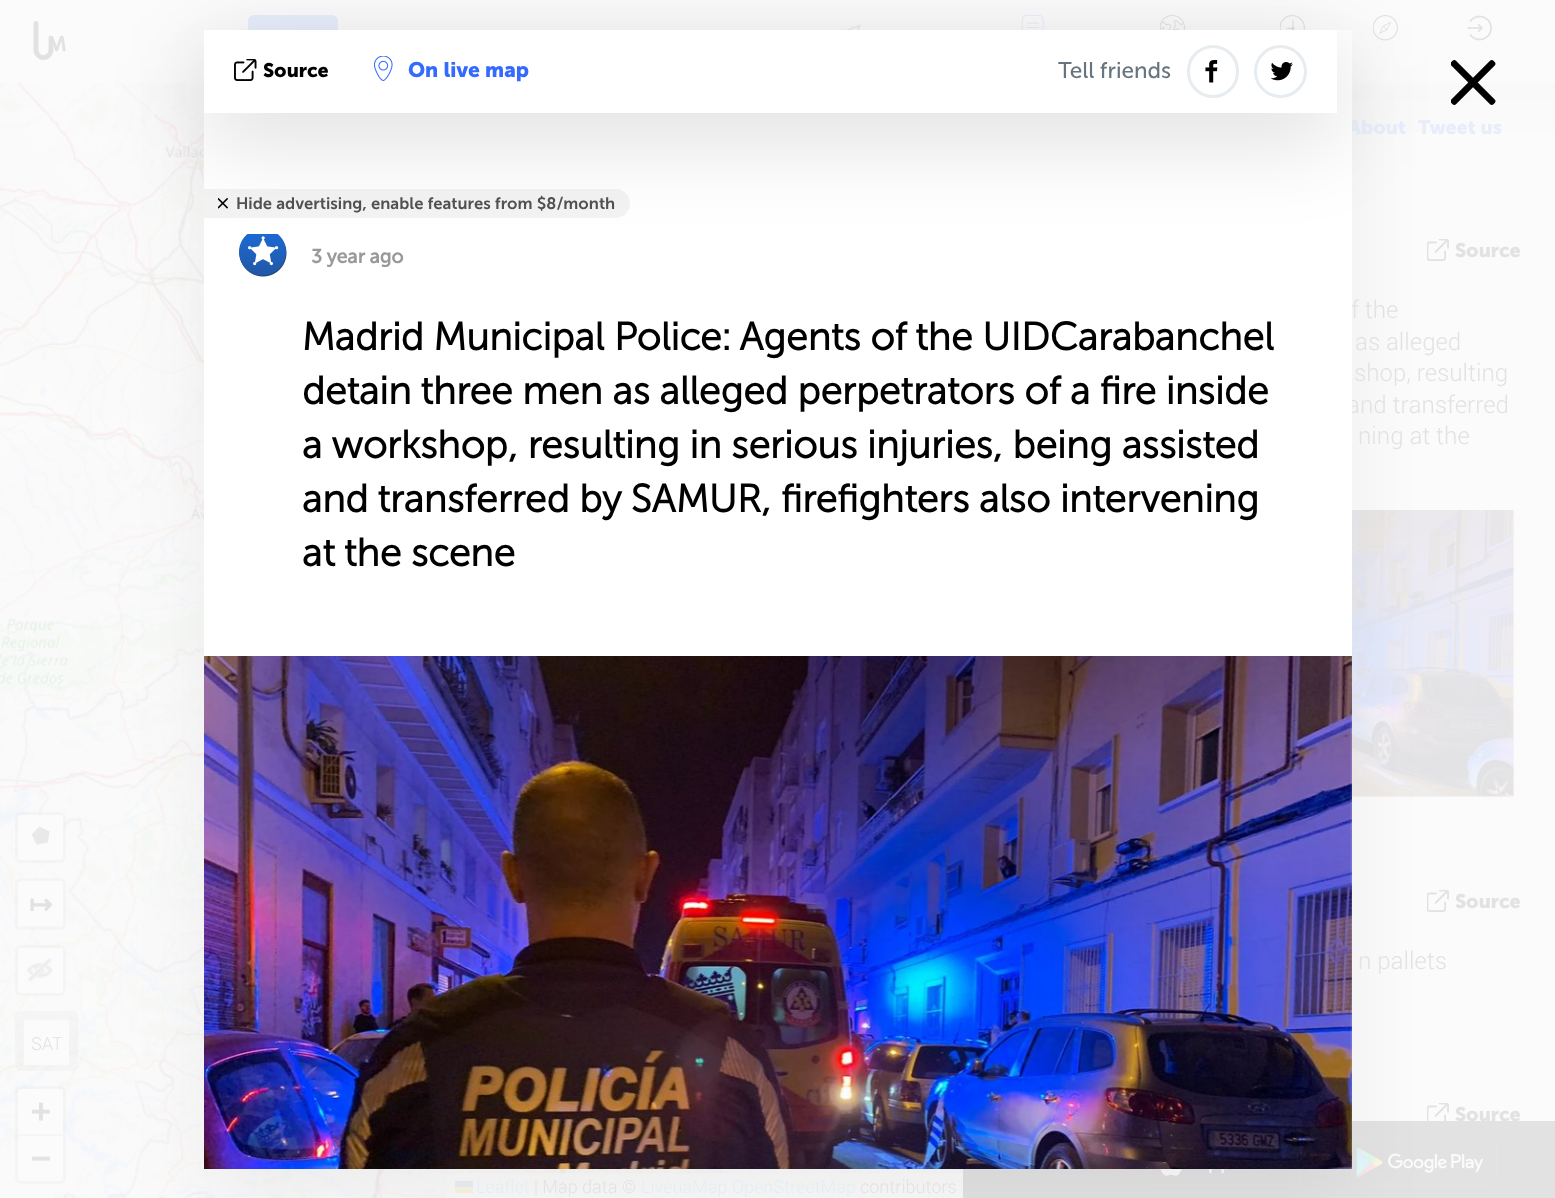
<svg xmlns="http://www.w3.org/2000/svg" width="1555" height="1198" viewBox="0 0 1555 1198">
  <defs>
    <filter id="blur1" x="-50%" y="-200%" width="200%" height="500%"><feGaussianBlur stdDeviation="37.5"/></filter>
    <filter id="blur2" x="-50%" y="-200%" width="200%" height="500%"><feGaussianBlur stdDeviation="45"/></filter>
  </defs>
  <rect width="100%" height="100%" fill="#ffffff"/>
  <rect x="0" y="0" width="963" height="83" fill="#fbfbfb"/>
  <rect x="248" y="15" width="90" height="53" rx="6" fill="#e7edfb"/>
  <image x="845" y="24" width="16" height="6" href="img10.png"/>
  <image x="0" y="83" width="204" height="313" href="img11.png"/>
  <image x="0" y="396" width="204" height="384" href="img12.png"/>
  <image x="0" y="780" width="204" height="384" href="img13.png"/>
  <image x="0" y="1164" width="339" height="34" href="img14.png"/>
  <image x="339" y="1169" width="384" height="29" href="img15.png"/>
  <image x="723" y="1169" width="240" height="29" href="img16.png"/>
  <rect x="731" y="1169" width="191" height="4" fill="#fbfbfb" fill-opacity="0.7"/>
  <rect x="447" y="1173" width="516" height="25" fill="#fbfbfb" fill-opacity="0.8"/>
  <rect x="455" y="1181" width="18" height="6" fill="#eaeef8"/>
  <rect x="455" y="1187" width="18" height="4" fill="#fbf7e2"/>
  <rect x="455" y="1191" width="18" height="2" fill="#f8f5e2"/>
  <rect x="963" y="0" width="592" height="1121" fill="#fbfbfb"/>
  <image x="1021" y="15" width="23" height="15" href="img19.png"/>
  <image x="1160" y="15" width="25" height="15" href="img20.png"/>
  <image x="1280" y="15" width="25" height="15" href="img21.png"/>
  <image x="1373" y="15" width="25" height="26" href="img22.png"/>
  <image x="1352" y="83" width="203" height="65" href="img24.png"/>
  <image x="1427" y="239" width="22" height="22" href="img25.png"/>
  <image x="1352" y="510" width="162" height="287" href="img26.png"/>
  <image x="1427" y="890" width="22" height="22" href="img25.png"/>
  <image x="1427" y="1103" width="22" height="18" href="img27.png"/>
  <rect x="963" y="1121" width="592" height="77" fill="#e2e2e2"/>
  <image x="1149" y="1169" width="152" height="16" href="img28.png"/>
  <image x="1346" y="1140" width="151" height="45" href="img29.png"/>
  <rect x="204" y="68" width="1148" height="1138" fill="#000000" fill-opacity="0.05" filter="url(#blur1)"/>
  <text x="1348" y="134" font-family="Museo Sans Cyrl" font-size="19.5" font-weight="bold" fill="#e7edfb">About</text>
  <text x="1351" y="318" font-family="Roboto" font-size="24" font-weight="300" fill="#e2e2e2">f the</text>
  <text x="1347" y="413" font-family="Roboto" font-size="24" font-weight="300" fill="#e2e2e2">and transferred</text>
  <rect x="204" y="30" width="1148" height="1139" fill="#ffffff"/>
  <image x="1451" y="60" width="45" height="45" href="img5.png"/>
  <path d="M204 189H615.5C623.5 189 630 195.5 630 203.5C630 211.5 623.5 218 615.5 218H204Z" fill="#f3f3f3"/>
  <image x="218" y="198" width="10" height="11" href="img6.png"/>
  <image x="239" y="234" width="48" height="43" href="img7.png"/>
  <image x="1467" y="15" width="25" height="26" href="img23.png"/>
  <rect x="204" y="53" width="1133" height="82" fill="#100f0f" fill-opacity="0.14" filter="url(#blur2)"/>
  <rect x="204" y="30" width="1133" height="83" fill="#ffffff"/>
  <image x="234" y="59" width="23" height="22" href="img1.png"/>
  <text x="263" y="77" font-family="Museo Sans Cyrl" font-size="19.5" font-weight="bold" fill="#000000">Source</text>
  <image x="374" y="56" width="19" height="25" href="img2.png"/>
  <text x="408" y="77" font-family="Museo Sans Cyrl" font-size="21" font-weight="bold" fill="#346afe">On live map</text>
  <text x="1058" y="78" font-family="Museo Sans Cyrl" font-size="22.5" fill="#66757f">Tell friends</text>
  <image x="1205" y="60" width="13" height="23" href="img3.png"/>
  <rect x="1188.5" y="46.5" width="49" height="50" rx="24.5" fill="none" stroke="#e6ecef" stroke-width="3"/>
  <image x="1271" y="62" width="22" height="19" href="img4.png"/>
  <circle cx="1280.5" cy="71.5" r="25" fill="none" stroke="#e6ecef" stroke-width="3"/>
  <text x="236" y="209" font-family="Museo Sans Cyrl" font-size="16.5" font-weight="600" fill="#505050">Hide advertising, enable features from $8/month</text>
  <text x="311" y="263" font-family="'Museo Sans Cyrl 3'" font-size="19.5" font-weight="bold" fill="#999999">3 year ago</text>
  <text x="302" y="350" font-family="'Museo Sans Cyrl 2'" font-size="39" font-weight="bold" fill="#000000">Madrid Municipal Police: Agents of the UIDCarabanchel</text>
  <text x="302" y="404" font-family="'Museo Sans Cyrl 2'" font-size="39" font-weight="bold" fill="#000000">detain three men as alleged perpetrators of a fire inside</text>
  <text x="302" y="458" font-family="'Museo Sans Cyrl 2'" font-size="39" font-weight="bold" fill="#000000">a workshop, resulting in serious injuries, being assisted</text>
  <text x="302" y="512" font-family="'Museo Sans Cyrl 2'" font-size="39" font-weight="bold" fill="#000000">and transferred by SAMUR, firefighters also intervening</text>
  <text x="302" y="566" font-family="'Museo Sans Cyrl 2'" font-size="39" font-weight="bold" fill="#000000">at the scene</text>
  <image x="204" y="656" width="1148" height="513" href="img8.png"/>
  <image x="33" y="21" width="33" height="39" href="img9.png"/>
  <rect x="16.5" y="813.5" width="48" height="48" rx="4.5" fill="none" stroke="#e2e2e2" stroke-opacity="0.2" stroke-width="3"/>
  <rect x="18" y="815" width="45" height="45" rx="3" fill="#fbfbfb"/>
  <image x="31" y="826" width="19" height="19" href="img17.png"/>
  <rect x="16.5" y="879.5" width="48" height="49" rx="4.5" fill="none" stroke="#e2e2e2" stroke-opacity="0.2" stroke-width="3"/>
  <path d="M21 881H60C61.5 881 63 882.5 63 884V927H18V884C18 882.5 19.5 881 21 881Z" fill="#fbfbfb"/>
  <rect x="18" y="926" width="45" height="2" fill="#f6f6f6"/>
  <text x="29" y="914" font-family="DejaVu Sans" font-size="28" font-weight="bold" fill="#e2e2e2">↦</text>
  <rect x="16.5" y="946.5" width="48" height="48" rx="4.5" fill="none" stroke="#e2e2e2" stroke-opacity="0.2" stroke-width="3"/>
  <rect x="18" y="948" width="45" height="45" rx="3" fill="#fbfbfb"/>
  <image x="26" y="958" width="27" height="24" href="img18.png"/>
  <rect x="16.5" y="1012.5" width="60" height="57" rx="4.5" fill="none" stroke="#e2e2e2" stroke-opacity="0.2" stroke-width="3"/>
  <rect x="19.5" y="1015.5" width="54" height="51" rx="4.5" fill="none" stroke="#e2e2e2" stroke-opacity="0.2" stroke-width="3"/>
  <path d="M24 1020H69V1065H24V1062Z" fill="#fbfbfb"/>
  <rect x="23" y="1017" width="48" height="3" fill="#e2e2e2" fill-opacity="0.2"/>
  <rect x="69" y="1019" width="3" height="45" fill="#e2e2e2" fill-opacity="0.2"/>
  <rect x="21" y="1019" width="3" height="45" fill="#e2e2e2" fill-opacity="0.2"/>
  <text x="31" y="1050" font-family="Roboto" font-size="18" font-weight="300" fill="#e2e2e2">SAT</text>
  <rect x="16.5" y="1087.5" width="48" height="95" rx="4.5" fill="none" stroke="#e2e2e2" stroke-opacity="0.2" stroke-width="3"/>
  <path d="M21 1089H60C61.5 1089 63 1090.5 63 1092V1136H18V1092C18 1090.5 19.5 1089 21 1089Z" fill="#fbfbfb"/>
  <rect x="18" y="1134" width="45" height="2" fill="#f6f6f6"/>
  <text x="31" y="1122" font-family="DejaVu Sans Mono" font-size="33" font-weight="bold" fill="#e2e2e2">+</text>
  <path d="M18 1136H63V1178C63 1179.5 61.5 1181 60 1181H21C19.5 1181 18 1179.5 18 1178Z" fill="#fbfbfb"/>
  <text x="31" y="1169" font-family="DejaVu Sans Mono" font-size="33" font-weight="bold" fill="#e2e2e2">−</text>
  <text x="476" y="1193" font-family="Roboto" font-size="18" font-weight="300" fill="#e2eef3">Leaflet</text>
  <text x="534" y="1193" font-family="Roboto" font-size="18" font-weight="300" fill="#e2e2e2">| Map data ©</text>
  <text x="641" y="1193" font-family="Roboto" font-size="18" font-weight="300" fill="#e2eef3">LiveuaMap OpenStreetMap</text>
  <text x="860" y="1193" font-family="Roboto" font-size="18" font-weight="300" fill="#e2e2e2">contributors</text>
  <text x="1418" y="134" font-family="Museo Sans Cyrl" font-size="19.5" font-weight="bold" fill="#e7edfb">Tweet us</text>
  <text x="1455" y="257" font-family="Museo Sans Cyrl" font-size="19.5" font-weight="bold" fill="#e2e2e2">Source</text>
  <text x="1355" y="350" font-family="Roboto" font-size="24" font-weight="300" fill="#e2e2e2">as alleged</text>
  <text x="1354" y="381" font-family="Roboto" font-size="24" font-weight="300" fill="#e2e2e2">shop, resulting</text>
  <text x="1358" y="444" font-family="Roboto" font-size="24" font-weight="300" fill="#e2e2e2">ning at the</text>
  <text x="1455" y="908" font-family="Museo Sans Cyrl" font-size="19.5" font-weight="bold" fill="#e2e2e2">Source</text>
  <text x="1358" y="969" font-family="Roboto" font-size="24" font-weight="300" fill="#e2e2e2">n pallets</text>
  <text x="1455" y="1121" font-family="Museo Sans Cyrl" font-size="19.5" font-weight="bold" fill="#e2e2e2">Source</text>
</svg>
